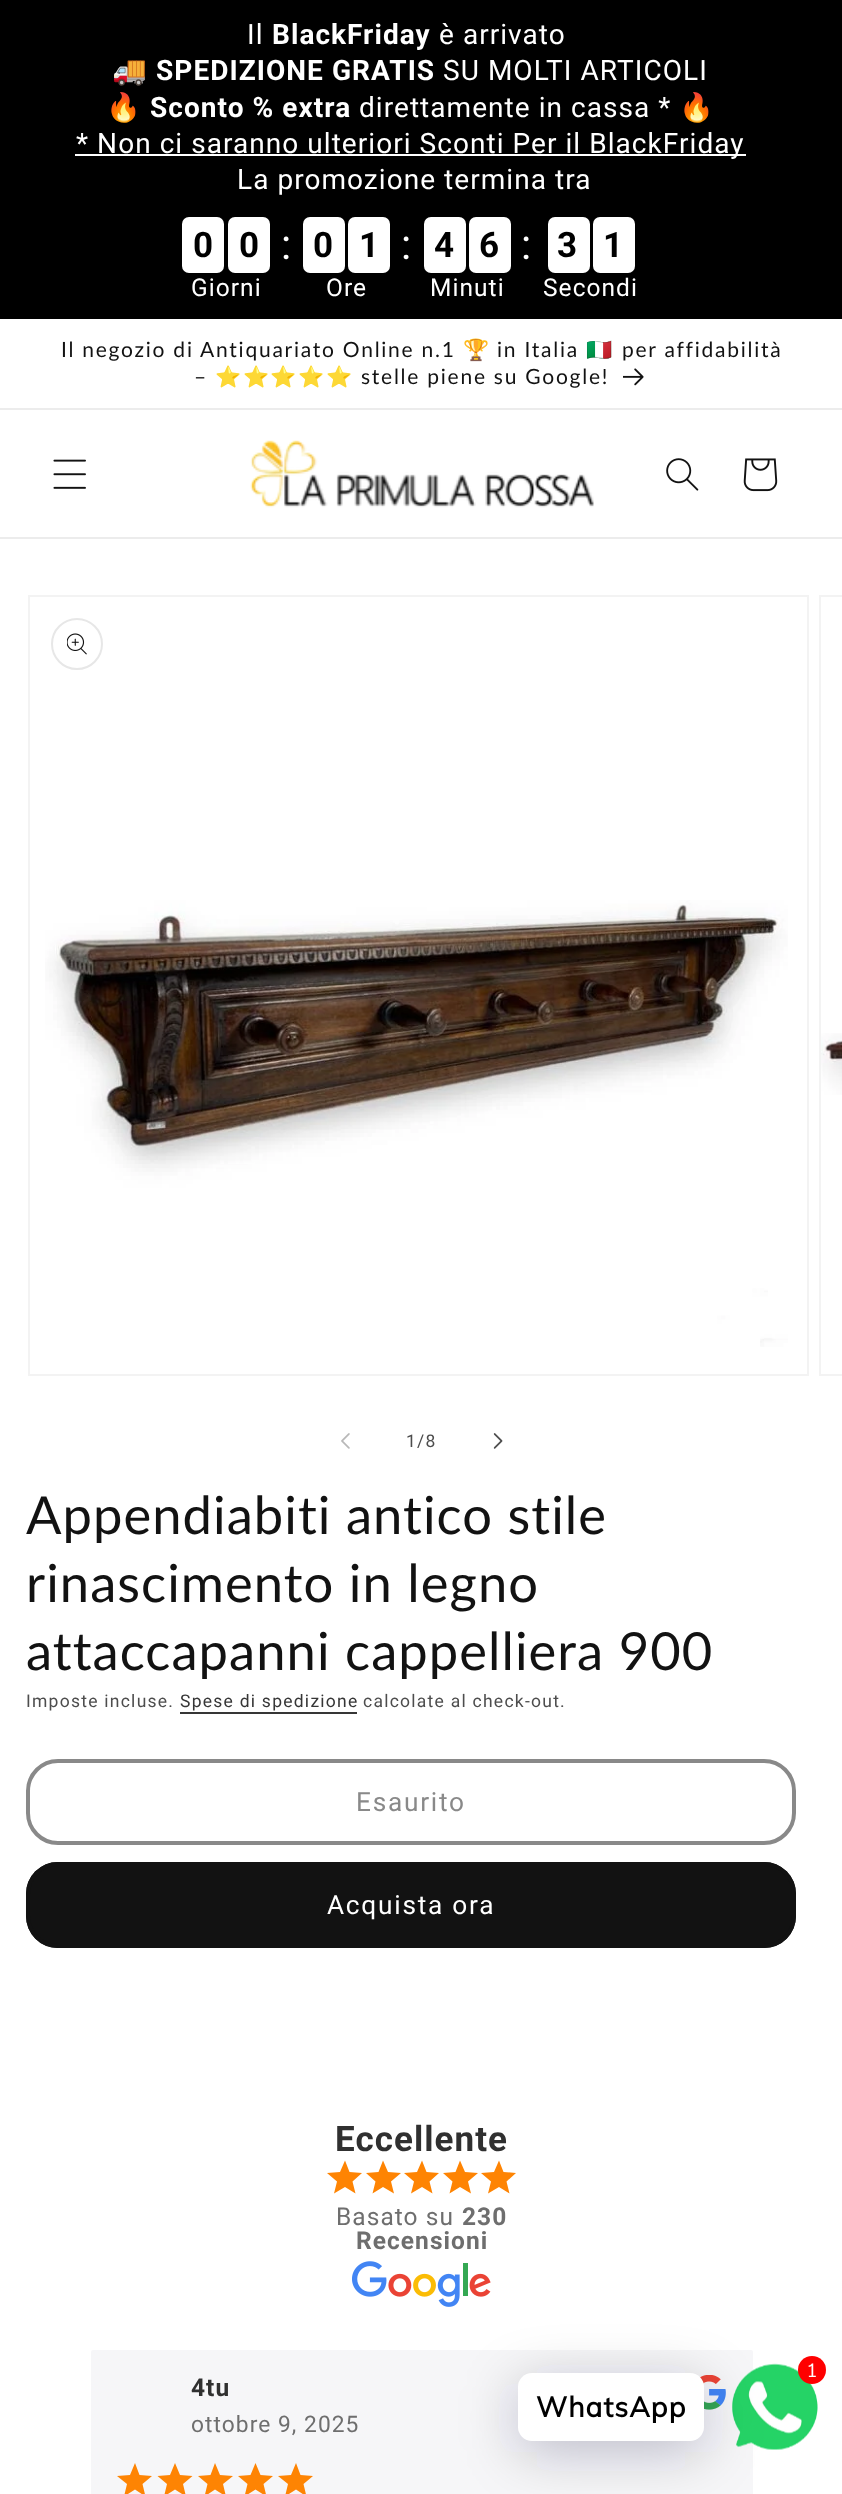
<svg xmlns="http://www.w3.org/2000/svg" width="842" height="2494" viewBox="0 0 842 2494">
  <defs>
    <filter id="blur1" x="-50%" y="-200%" width="200%" height="500%"><feGaussianBlur stdDeviation="28"/></filter>
  </defs>
  <rect width="100%" height="100%" fill="#ffffff"/>
  <rect x="0" y="0" width="842" height="319" fill="#000000"/>
  <text x="247" y="44" font-family="Roboto" font-size="28" letter-spacing="1.05" fill="#ffffff">Il</text>
  <text x="272" y="44" font-family="Roboto" font-size="28" font-weight="bold" letter-spacing="1.05" fill="#ffffff">BlackFriday</text>
  <text x="439" y="44" font-family="Roboto" font-size="28" letter-spacing="1.05" fill="#ffffff">è arrivato</text>
  <text x="112" y="80" font-family="Noto Color Emoji" font-size="28" letter-spacing="1.05" fill="#ffffff">🚚</text>
  <text x="156" y="80" font-family="Roboto" font-size="28" font-weight="bold" letter-spacing="1.05" fill="#ffffff">SPEDIZIONE GRATIS</text>
  <text x="443" y="80" font-family="Roboto" font-size="28" letter-spacing="1.05" fill="#ffffff">SU MOLTI ARTICOLI</text>
  <text x="106" y="117" font-family="Noto Color Emoji" font-size="28" letter-spacing="1.05" fill="#ffffff">🔥</text>
  <text x="150" y="117" font-family="Roboto" font-size="28" font-weight="bold" letter-spacing="1.05" fill="#ffffff">Sconto % extra</text>
  <text x="359" y="117" font-family="Roboto" font-size="28" letter-spacing="1.05" fill="#ffffff">direttamente in cassa *</text>
  <text x="679" y="117" font-family="Noto Color Emoji" font-size="28" letter-spacing="1.05" fill="#ffffff">🔥</text>
  <rect x="75" y="154" width="671" height="2" fill="#ffffff"/>
  <text x="76" y="153" font-family="Roboto" font-size="28" letter-spacing="1.05" fill="#ffffff">* Non ci saranno ulteriori Sconti Per il BlackFriday</text>
  <text x="237" y="189" font-family="Roboto" font-size="28" letter-spacing="1.05" fill="#ffffff">La promozione termina tra</text>
  <rect x="182" y="217" width="42" height="56" rx="7" fill="#ffffff"/>
  <text x="193" y="257" font-family="Roboto" font-size="35" font-weight="bold" letter-spacing="1.05" fill="#000000">0</text>
  <rect x="228" y="217" width="42" height="56" rx="7" fill="#ffffff"/>
  <text x="239" y="257" font-family="Roboto" font-size="35" font-weight="bold" letter-spacing="1.05" fill="#000000">0</text>
  <text x="191" y="296" font-family="Roboto" font-size="24.5" letter-spacing="1.05" fill="#ffffff">Giorni</text>
  <text x="281" y="259" font-family="Roboto" font-size="42" letter-spacing="1.05" fill="#ffffff">:</text>
  <rect x="303" y="217" width="42" height="56" rx="7" fill="#ffffff"/>
  <text x="313" y="257" font-family="Roboto" font-size="35" font-weight="bold" letter-spacing="1.05" fill="#000000">0</text>
  <rect x="348" y="217" width="42" height="56" rx="7" fill="#ffffff"/>
  <text x="359" y="257" font-family="Roboto" font-size="35" font-weight="bold" letter-spacing="1.05" fill="#000000">1</text>
  <text x="326" y="296" font-family="Roboto" font-size="24.5" letter-spacing="1.05" fill="#ffffff">Ore</text>
  <text x="401" y="259" font-family="Roboto" font-size="42" letter-spacing="1.05" fill="#ffffff">:</text>
  <rect x="424" y="217" width="42" height="56" rx="7" fill="#ffffff"/>
  <text x="434" y="257" font-family="Roboto" font-size="35" font-weight="bold" letter-spacing="1.05" fill="#000000">4</text>
  <rect x="469" y="217" width="42" height="56" rx="7" fill="#ffffff"/>
  <text x="479" y="257" font-family="Roboto" font-size="35" font-weight="bold" letter-spacing="1.05" fill="#000000">6</text>
  <text x="430" y="296" font-family="Roboto" font-size="24.5" letter-spacing="1.05" fill="#ffffff">Minuti</text>
  <text x="521" y="259" font-family="Roboto" font-size="42" letter-spacing="1.05" fill="#ffffff">:</text>
  <rect x="548" y="217" width="42" height="56" rx="7" fill="#ffffff"/>
  <text x="557" y="257" font-family="Roboto" font-size="35" font-weight="bold" letter-spacing="1.05" fill="#000000">3</text>
  <rect x="593" y="217" width="42" height="56" rx="7" fill="#ffffff"/>
  <text x="603" y="257" font-family="Roboto" font-size="35" font-weight="bold" letter-spacing="1.05" fill="#000000">1</text>
  <text x="543" y="296" font-family="Roboto" font-size="24.5" letter-spacing="1.05" fill="#ffffff">Secondi</text>
  <rect x="0" y="408" width="842" height="2" fill="#ececec"/>
  <text x="61" y="357" font-family="Lato" font-size="21" letter-spacing="1.75" fill="#121212">Il negozio di Antiquariato Online n.1</text>
  <text x="463" y="357" font-family="Noto Color Emoji" font-size="21" letter-spacing="1.75" fill="#121212">🏆</text>
  <text x="497" y="357" font-family="Lato" font-size="21" letter-spacing="1.75" fill="#121212">in Italia</text>
  <text x="586" y="357" font-family="Noto Color Emoji" font-size="21" letter-spacing="1.75" fill="#121212">🇮🇹</text>
  <text x="622" y="357" font-family="Lato" font-size="21" letter-spacing="1.75" fill="#121212">per affidabilità</text>
  <text x="194" y="384" font-family="Lato" font-size="21" letter-spacing="1.75" fill="#121212">–</text>
  <text x="215" y="384" font-family="Noto Color Emoji" font-size="21" letter-spacing="1.75" fill="#121212">⭐⭐⭐⭐⭐</text>
  <text x="361" y="384" font-family="Lato" font-size="21" letter-spacing="1.75" fill="#121212">stelle piene su Google!</text>
  <image x="623" y="368" width="21" height="18" href="img1.png"/>
  <rect x="0" y="537" width="842" height="2" fill="#ececec"/>
  <image x="53" y="459" width="33" height="30" href="img2.png"/>
  <image x="250" y="440" width="344" height="68" href="img3.png"/>
  <image x="666" y="458" width="33" height="33" href="img4.png"/>
  <image x="743" y="458" width="35" height="34" href="img5.png"/>
  <rect x="29" y="596" width="779" height="779" fill="none" stroke="#f3f3f3" stroke-width="2"/>
  <circle cx="77" cy="644" r="25" fill="none" stroke="#e7e7e7" stroke-width="2"/>
  <image x="67" y="633" width="20" height="22" href="img6.png"/>
  <image x="45" y="900" width="743" height="447" href="img7.png"/>
  <rect x="820" y="596" width="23" height="779" fill="none" stroke="#f3f3f3" stroke-width="2"/>
  <image x="821" y="1033" width="21" height="62" href="img8.png"/>
  <image x="341" y="1433" width="9" height="16" href="img9.png"/>
  <text x="406" y="1447" font-family="Roboto" font-size="17.5" letter-spacing="1.25" fill="#4d4d4d">1/8</text>
  <image x="493" y="1433" width="10" height="16" href="img10.png"/>
  <text x="26" y="1534" font-family="Lato" font-size="52.5" letter-spacing="1.05" fill="#121212">Appendiabiti antico stile</text>
  <text x="26" y="1602" font-family="Lato" font-size="52.5" letter-spacing="1.05" fill="#121212">rinascimento in legno</text>
  <text x="26" y="1670" font-family="Lato" font-size="52.5" letter-spacing="1.05" fill="#121212">attaccapanni cappelliera 900</text>
  <text x="26" y="1707" font-family="Roboto" font-size="17.5" letter-spacing="1.25" fill="#4d4d4d">Imposte incluse.</text>
  <text x="180" y="1707" font-family="Roboto" font-size="17.5" letter-spacing="1.25" fill="#363636">Spese di spedizione</text>
  <rect x="180" y="1712" width="177" height="2" fill="#363636"/>
  <text x="363" y="1707" font-family="Roboto" font-size="17.5" letter-spacing="1.25" fill="#4d4d4d">calcolate al check-out.</text>
  <rect x="28" y="1761" width="766" height="82" rx="30" fill="none" stroke="#898989" stroke-width="4"/>
  <text x="356" y="1811" font-family="Roboto" font-size="26.25" letter-spacing="1.75" fill="#898989">Esaurito</text>
  <rect x="26" y="1862" width="770" height="86" rx="32" fill="#121212"/>
  <rect x="28" y="1864" width="766" height="82" rx="30" fill="none" stroke="#121212" stroke-width="4"/>
  <text x="327" y="1914" font-family="Roboto" font-size="26.25" letter-spacing="1.75" fill="#ffffff">Acquista ora</text>
  <text x="335" y="2151" font-family="Roboto" font-size="35" font-weight="bold" letter-spacing="1.05" fill="#303030">Eccellente</text>
  <path d="M345 2160.5L349.5 2172L362 2173L352.5 2181.5L355.5 2193.5L345 2187L334 2193.5L337 2181.5L327 2173L340 2172Z" fill="#fe8403" fill-rule="evenodd"/>
  <path d="M383 2160.5L388 2172L401 2173L391 2181.5L394 2193.5L383 2187L372.5 2193.5L375.5 2181.5L366 2173L378.5 2172Z" fill="#fe8403" fill-rule="evenodd"/>
  <path d="M422 2160.5L426.5 2172L439 2173L429.5 2181.5L432.5 2193.5L422 2187L411 2193.5L414 2181.5L404 2173L417 2172Z" fill="#fe8403" fill-rule="evenodd"/>
  <path d="M460 2160.5L465 2172L478 2173L468 2181.5L471 2193.5L460 2187L449.5 2193.5L452.5 2181.5L443 2173L455.5 2172Z" fill="#fe8403" fill-rule="evenodd"/>
  <path d="M499 2160.5L503.5 2172L516 2173L506.5 2181.5L509.5 2193.5L499 2187L488 2193.5L491 2181.5L481 2173L494 2172Z" fill="#fe8403" fill-rule="evenodd"/>
  <text x="336" y="2225" font-family="Roboto" font-size="24.5" letter-spacing="1.05" fill="#6e6e6e">Basato su</text>
  <text x="462" y="2225" font-family="Roboto" font-size="24.5" font-weight="bold" letter-spacing="1.05" fill="#6e6e6e">230</text>
  <text x="356" y="2249" font-family="Roboto" font-size="24.5" font-weight="bold" letter-spacing="1.05" fill="#6e6e6e">Recensioni</text>
  <image x="352" y="2261" width="139" height="46" href="img11.png"/>
  <rect x="91" y="2350" width="662" height="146" rx="2" fill="#f6f6f8"/>
  <text x="191" y="2396" font-family="Roboto" font-size="24.5" font-weight="bold" letter-spacing="1.05" fill="#303030">4tu</text>
  <text x="191" y="2432" font-family="Roboto" font-size="22.75" letter-spacing="1.05" fill="#6e6e6e">ottobre 9, 2025</text>
  <image x="699" y="2375" width="27" height="35" href="img12.png"/>
  <path d="M135 2463L139.5 2475L152 2476L142.5 2484L145.5 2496.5L135 2489.5L124 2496.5L127 2484L117 2476L130 2475Z" fill="#fe8403" fill-rule="evenodd"/>
  <path d="M175 2463L180 2475L192.5 2476L183 2484L186 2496.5L175 2489.5L164 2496.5L167 2484L157.5 2476L170 2475Z" fill="#fe8403" fill-rule="evenodd"/>
  <path d="M215 2463L220 2475L233 2476L223 2484L226 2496.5L215 2489.5L204.5 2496.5L207.5 2484L198 2476L210.5 2475Z" fill="#fe8403" fill-rule="evenodd"/>
  <path d="M255.5 2463L260.5 2475L273 2476L263.5 2484L266.5 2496.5L255.5 2489.5L244.5 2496.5L247.5 2484L238 2476L250.5 2475Z" fill="#fe8403" fill-rule="evenodd"/>
  <path d="M296 2463L300.5 2475L313 2476L303.5 2484L306.5 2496.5L296 2489.5L285 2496.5L288 2484L278 2476L291 2475Z" fill="#fe8403" fill-rule="evenodd"/>
  <image x="732" y="2363" width="86" height="87" href="img13.png"/>
  <circle cx="812" cy="2370" r="14" fill="#ff0000"/>
  <text x="808" y="2377" font-family="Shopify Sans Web" font-size="19" letter-spacing="1.05" fill="#ffffff">1</text>
  <rect x="518" y="2384" width="186" height="68" rx="14" fill="#00122e" fill-opacity="0.24" filter="url(#blur1)"/>
  <rect x="518" y="2373" width="186" height="68" rx="14" fill="#ffffff"/>
  <text x="536" y="2417" font-family="Muli" font-size="28" font-weight="bold" letter-spacing="1.05" fill="#000000">WhatsApp</text>
</svg>
